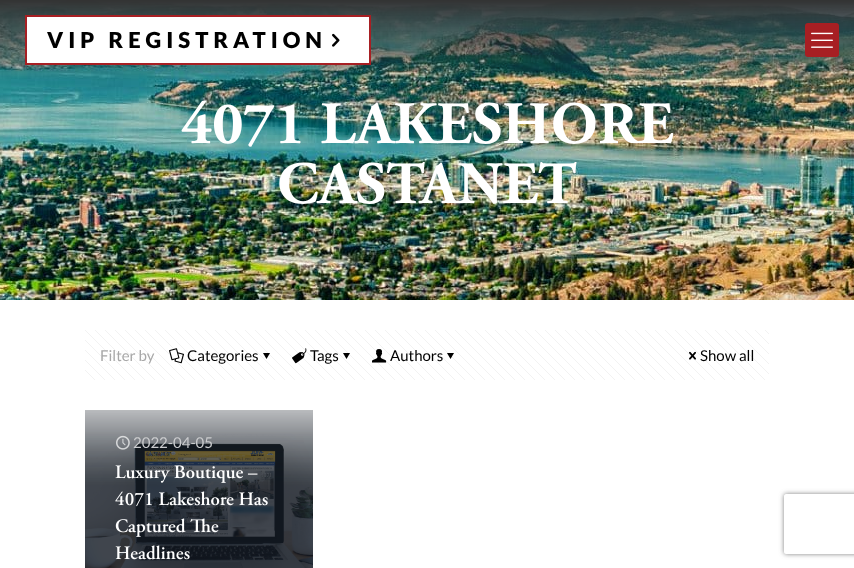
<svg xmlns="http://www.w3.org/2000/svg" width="854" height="568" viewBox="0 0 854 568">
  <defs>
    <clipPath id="clip1"><path d="M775 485H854V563H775ZM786 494H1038C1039 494 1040 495 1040 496V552C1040 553 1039 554 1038 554H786C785 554 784 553 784 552V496C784 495 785 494 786 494Z" clip-rule="evenodd"/></clipPath>
    <filter id="blur1" x="-50%" y="-200%" width="200%" height="500%"><feGaussianBlur stdDeviation="2.5"/></filter>
  </defs>
  <rect width="100%" height="100%" fill="#ffffff"/>
  <image x="0" y="0" width="854" height="300" href="img3.png"/>
  <rect x="26" y="16" width="344" height="48" fill="#ffffff" stroke="#a71f23" stroke-width="2"/>
  <text x="47" y="48" font-family="Lato" font-size="22" font-weight="900" letter-spacing="5" fill="#000000">VIP REGISTRATION</text>
  <image x="332" y="33" width="8" height="14" href="img1.png"/>
  <rect x="805" y="23" width="34" height="34" rx="3" fill="#a71f23"/>
  <image x="811" y="32" width="22" height="16" href="img2.png"/>
  <text x="181" y="143" font-family="Adobe Garamond" font-size="60" font-weight="bold" fill="#ffffff">4071 LAKESHORE</text>
  <text x="277" y="203" font-family="Adobe Garamond" font-size="60" font-weight="bold" fill="#ffffff">CASTANET</text>
  <image x="85" y="330" width="684" height="50" href="img4.png"/>
  <text x="100" y="361" font-family="Lato" font-size="15" fill="#a8a8a8">Filter by</text>
  <image x="169" y="348" width="15" height="16" href="img5.png"/>
  <text x="187" y="361" font-family="Lato" font-size="15" fill="#000000">Categories</text>
  <path d="M270 353L266.5 359L263 353Z" fill="#000000"/>
  <image x="292" y="348" width="15" height="16" href="img6.png"/>
  <text x="310" y="361" font-family="Lato" font-size="15" fill="#000000">Tags</text>
  <path d="M350 353L346.5 359L343 353Z" fill="#000000"/>
  <image x="372" y="349" width="15" height="14" href="img7.png"/>
  <text x="390" y="361" font-family="Lato" font-size="15" fill="#000000">Authors</text>
  <path d="M454 353L450.5 359L447 353Z" fill="#000000"/>
  <image x="689" y="351" width="7" height="9" href="img8.png"/>
  <text x="700" y="361" font-family="Lato" font-size="15" fill="#000000">Show all</text>
  <image x="85" y="433" width="228" height="135" href="img9.png"/>
  <image x="85" y="410" width="228" height="158" href="img10.png"/>
  <image x="116" y="435" width="14" height="15" href="img11.png"/>
  <text x="133" y="448" font-family="Lato" font-size="15" fill="#cbccce">2022-04-05</text>
  <image x="115" y="465" width="143" height="18" href="img12.png"/>
  <image x="115" y="491" width="153" height="16" href="img13.png"/>
  <image x="115" y="518" width="104" height="19" href="img14.png"/>
  <image x="115" y="545" width="75" height="15" href="img15.png"/>
  <g clip-path="url(#clip1)">
    <rect x="784" y="494" width="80" height="60" rx="2" fill="#808080" filter="url(#blur1)"/>
  </g>
</svg>
